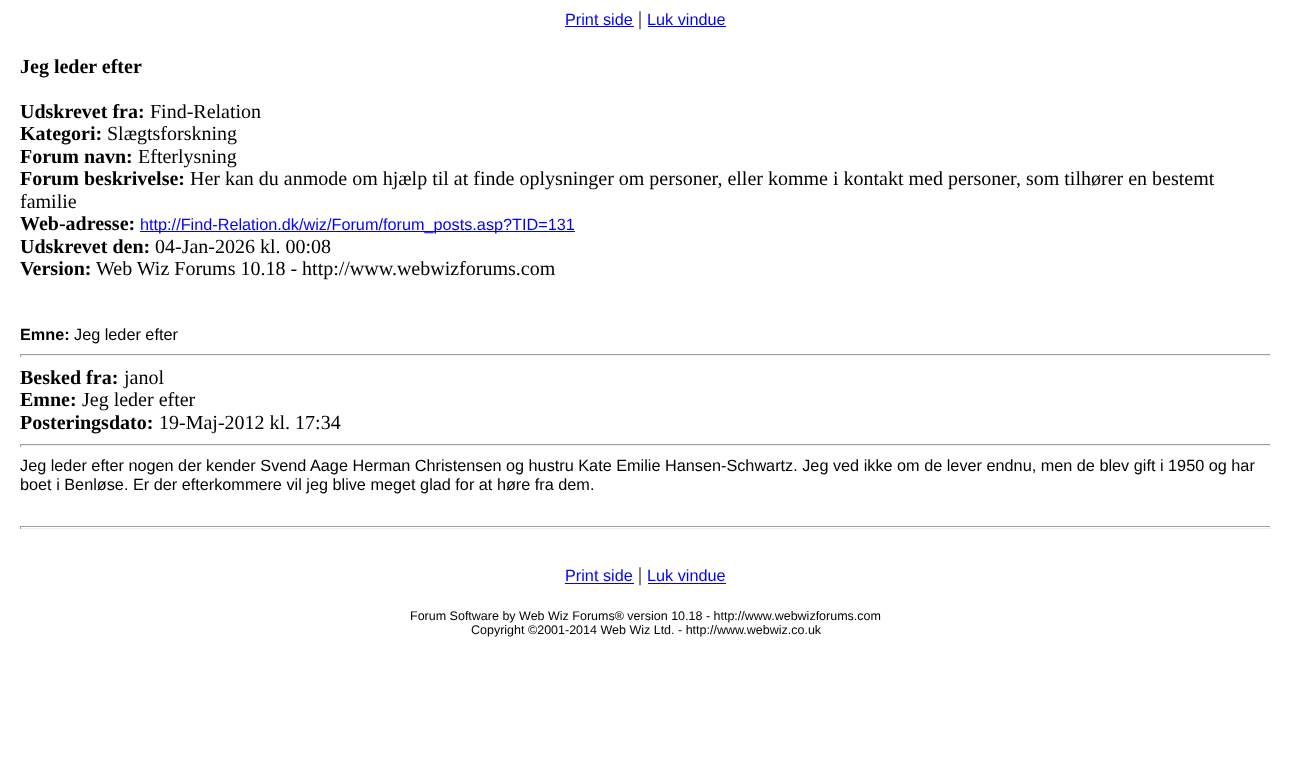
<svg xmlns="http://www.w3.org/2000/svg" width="1291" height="772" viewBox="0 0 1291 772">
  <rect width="100%" height="100%" fill="#ffffff"/>
  <text x="565" y="25" font-family="Liberation Sans" font-size="16.25" fill="#0000ff">Print side</text>
  <rect x="565" y="26" width="69" height="1" fill="#0000ff"/>
  <text x="638" y="25" font-family="Liberation Serif" font-size="20" fill="#000000">|</text>
  <text x="647" y="25" font-family="Liberation Sans" font-size="16.25" fill="#0000ff">Luk vindue</text>
  <rect x="648" y="26" width="78" height="1" fill="#0000ff"/>
  <text x="20" y="73" font-family="Liberation Serif" font-size="20" font-weight="bold" fill="#000000">Jeg leder efter</text>
  <text x="20" y="118" font-family="Liberation Serif" font-size="20" font-weight="bold" fill="#000000">Udskrevet fra:</text>
  <text x="150" y="118" font-family="Liberation Serif" font-size="20" fill="#000000">Find-Relation</text>
  <text x="20" y="140" font-family="Liberation Serif" font-size="20" font-weight="bold" fill="#000000">Kategori:</text>
  <text x="107" y="140" font-family="Liberation Serif" font-size="20" fill="#000000">Slægtsforskning</text>
  <text x="20" y="163" font-family="Liberation Serif" font-size="20" font-weight="bold" fill="#000000">Forum navn:</text>
  <text x="138" y="163" font-family="Liberation Serif" font-size="20" fill="#000000">Efterlysning</text>
  <text x="20" y="185" font-family="Liberation Serif" font-size="20" font-weight="bold" fill="#000000">Forum beskrivelse:</text>
  <text x="190" y="185" font-family="Liberation Serif" font-size="20" fill="#000000">Her kan du anmode om hjælp til at finde oplysninger om personer, eller komme i kontakt med personer, som tilhører en bestemt</text>
  <text x="20" y="208" font-family="Liberation Serif" font-size="20" fill="#000000">familie</text>
  <text x="20" y="230" font-family="Liberation Serif" font-size="20" font-weight="bold" fill="#000000">Web-adresse:</text>
  <rect x="140" y="231" width="435" height="1" fill="#0000ff"/>
  <text x="140" y="230" font-family="Liberation Sans" font-size="16.25" fill="#0000ff">http://Find-Relation.dk/wiz/Forum/forum_posts.asp?TID=131</text>
  <text x="20" y="253" font-family="Liberation Serif" font-size="20" font-weight="bold" fill="#000000">Udskrevet den:</text>
  <text x="155" y="253" font-family="Liberation Serif" font-size="20" fill="#000000">04-Jan-2026 kl. 00:08</text>
  <text x="20" y="275" font-family="Liberation Serif" font-size="20" font-weight="bold" fill="#000000">Version:</text>
  <text x="96" y="275" font-family="Liberation Serif" font-size="20" fill="#000000">Web Wiz Forums 10.18 - http://www.webwizforums.com</text>
  <text x="20" y="340" font-family="Liberation Sans" font-size="16.25" font-weight="bold" fill="#000000">Emne:</text>
  <text x="74" y="340" font-family="Liberation Sans" font-size="16.25" fill="#000000">Jeg leder efter</text>
  <rect x="20" y="354" width="1251" height="1" fill="#9f9f9f"/>
  <rect x="1270" y="354" width="1" height="3" fill="#eeeeee"/>
  <rect x="20" y="355" width="1251" height="1" fill="#eeeeee"/>
  <rect x="20" y="354" width="1" height="3" fill="#9f9f9f"/>
  <text x="20" y="384" font-family="Liberation Serif" font-size="20" font-weight="bold" fill="#000000">Besked fra:</text>
  <text x="124" y="384" font-family="Liberation Serif" font-size="20" fill="#000000">janol</text>
  <text x="20" y="406" font-family="Liberation Serif" font-size="20" font-weight="bold" fill="#000000">Emne:</text>
  <text x="82" y="406" font-family="Liberation Serif" font-size="20" fill="#000000">Jeg leder efter</text>
  <text x="20" y="429" font-family="Liberation Serif" font-size="20" font-weight="bold" fill="#000000">Posteringsdato:</text>
  <text x="159" y="429" font-family="Liberation Serif" font-size="20" fill="#000000">19-Maj-2012 kl. 17:34</text>
  <rect x="20" y="444" width="1251" height="1" fill="#9f9f9f"/>
  <rect x="1270" y="444" width="1" height="3" fill="#eeeeee"/>
  <rect x="20" y="445" width="1251" height="1" fill="#eeeeee"/>
  <rect x="20" y="444" width="1" height="3" fill="#9f9f9f"/>
  <text x="20" y="471" font-family="Liberation Sans" font-size="16.25" fill="#000000">Jeg leder efter nogen der kender Svend Aage Herman Christensen og hustru Kate Emilie Hansen-Schwartz. Jeg ved ikke om de lever endnu, men de blev gift i 1950 og har</text>
  <text x="20" y="490" font-family="Liberation Sans" font-size="16.25" fill="#000000">boet i Benløse. Er der efterkommere vil jeg blive meget glad for at høre fra dem.</text>
  <rect x="20" y="526" width="1251" height="1" fill="#9f9f9f"/>
  <rect x="1270" y="526" width="1" height="3" fill="#eeeeee"/>
  <rect x="20" y="528" width="1251" height="1" fill="#eeeeee"/>
  <rect x="20" y="526" width="1" height="3" fill="#9f9f9f"/>
  <text x="565" y="581" font-family="Liberation Sans" font-size="16.25" fill="#0000ff">Print side</text>
  <rect x="565" y="583" width="69" height="1" fill="#0000ff"/>
  <text x="638" y="581" font-family="Liberation Serif" font-size="20" fill="#000000">|</text>
  <text x="647" y="581" font-family="Liberation Sans" font-size="16.25" fill="#0000ff">Luk vindue</text>
  <rect x="648" y="583" width="78" height="1" fill="#0000ff"/>
  <text x="410" y="620" font-family="Liberation Sans" font-size="12.5" fill="#000000">Forum Software by Web Wiz Forums® version 10.18 - http://www.webwizforums.com</text>
  <text x="471" y="634" font-family="Liberation Sans" font-size="12.5" fill="#000000">Copyright ©2001-2014 Web Wiz Ltd. - http://www.webwiz.co.uk</text>
</svg>
